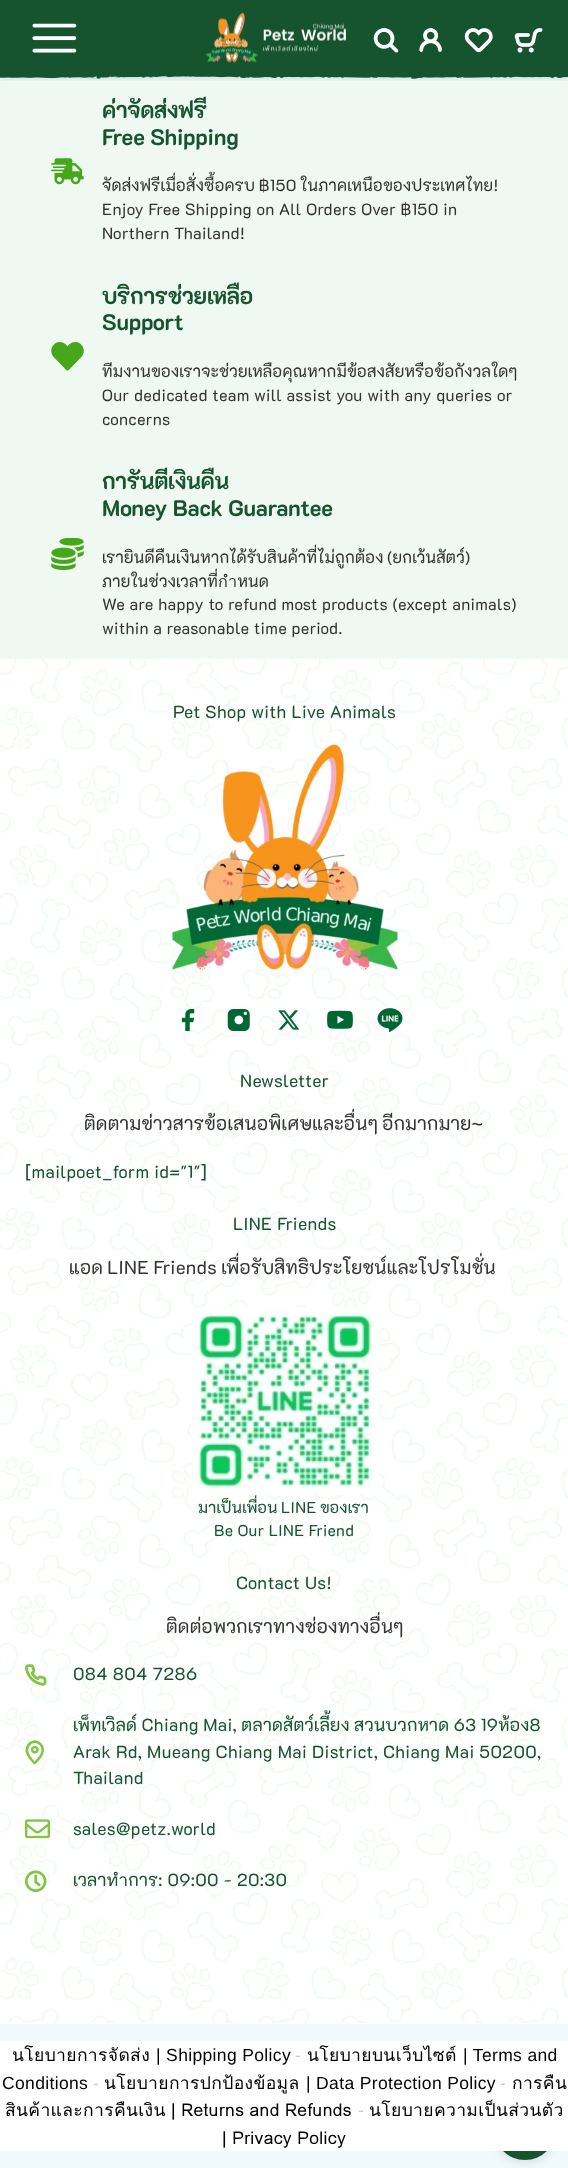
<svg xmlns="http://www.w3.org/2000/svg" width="568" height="2168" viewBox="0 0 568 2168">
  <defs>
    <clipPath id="clip1"><rect x="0" y="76" width="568" height="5"/></clipPath>
    <filter id="blur1" x="-50%" y="-200%" width="200%" height="500%"><feGaussianBlur stdDeviation="4"/></filter>
    <filter id="blur2" x="-50%" y="-200%" width="200%" height="500%"><feGaussianBlur stdDeviation="4.5"/></filter>
  </defs>
  <rect width="100%" height="100%" fill="#f0f9fc"/>
  <rect x="0" y="0" width="568" height="75" fill="#15542e"/>
  <rect x="0" y="78" width="568" height="581" fill="#eff9f1"/>
  <g clip-path="url(#clip1)">
    <rect x="0" y="1" width="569" height="75" fill="#143a66" fill-opacity="0.23" filter="url(#blur1)"/>
  </g>
  <image x="32" y="23" width="45" height="30" href="img1.png"/>
  <image x="206" y="12" width="140" height="51" href="img2.png"/>
  <image x="373" y="28" width="26" height="25" href="img3.png"/>
  <image x="419" y="28" width="23" height="24" href="img4.png"/>
  <image x="464" y="28" width="29" height="25" href="img5.png"/>
  <image x="514" y="28" width="29" height="25" href="img6.png"/>
  <image x="0" y="75" width="568" height="4" href="img7.png"/>
  <image x="51" y="158" width="33" height="27" href="img8.png"/>
  <text x="102" y="118" font-family="'K2D'" font-size="22.5" font-weight="bold" letter-spacing="-0.25" fill="#15542e">ค่าจัดส่งฟรี</text>
  <text x="102" y="145" font-family="'K2D'" font-size="22.5" font-weight="bold" letter-spacing="-0.25" fill="#15542e">Free Shipping</text>
  <text x="102" y="191" word-spacing="-1" font-family="'K2D'" font-size="16.25" letter-spacing="0.33" fill="#333333">จัดส่งฟรีเมื่อสั่งซื้อครบ ฿150 ในภาคเหนือของประเทศไทย!</text>
  <text x="102" y="215" font-family="'K2D'" font-size="16.25" letter-spacing="0.33" fill="#333333">Enjoy Free Shipping on All Orders Over ฿150 in</text>
  <text x="102" y="239" font-family="'K2D'" font-size="16.25" letter-spacing="0.33" fill="#333333">Northern Thailand!</text>
  <image x="51" y="342" width="33" height="29" href="img9.png"/>
  <text x="102" y="304" font-family="'K2D'" font-size="22.5" font-weight="bold" letter-spacing="-0.25" fill="#15542e">บริการช่วยเหลือ</text>
  <text x="102" y="330" font-family="'K2D'" font-size="22.5" font-weight="bold" letter-spacing="-0.25" fill="#15542e">Support</text>
  <text x="102" y="377" font-family="'K2D'" font-size="16.25" letter-spacing="0.33" fill="#333333">ทีมงานของเราจะช่วยเหลือคุณหากมีข้อสงสัยหรือข้อกังวลใดๆ</text>
  <text x="102" y="401" font-family="'K2D'" font-size="16.25" letter-spacing="0.33" fill="#333333">Our dedicated team will assist you with any queries or</text>
  <text x="102" y="425" font-family="'K2D'" font-size="16.25" letter-spacing="0.33" fill="#333333">concerns</text>
  <image x="51" y="538" width="33" height="32" href="img10.png"/>
  <text x="102" y="489" font-family="'K2D'" font-size="22.5" font-weight="bold" letter-spacing="-0.25" fill="#15542e">การันตีเงินคืน</text>
  <text x="102" y="516" font-family="'K2D'" font-size="22.5" font-weight="bold" letter-spacing="-0.25" fill="#15542e">Money Back Guarantee</text>
  <text x="102" y="563" word-spacing="-1" font-family="'K2D'" font-size="16.25" letter-spacing="0.33" fill="#333333">เรายินดีคืนเงินหากได้รับสินค้าที่ไม่ถูกต้อง (ยกเว้นสัตว์)</text>
  <text x="102" y="587" font-family="'K2D'" font-size="16.25" letter-spacing="0.33" fill="#333333">ภายในช่วงเวลาที่กำหนด</text>
  <text x="102" y="610" font-family="'K2D'" font-size="16.25" letter-spacing="0.33" fill="#333333">We are happy to refund most products (except animals)</text>
  <text x="102" y="634" font-family="'K2D'" font-size="16.25" letter-spacing="0.33" fill="#333333">within a reasonable time period.</text>
  <rect x="0" y="2023" width="568" height="1" fill="#ffffff"/>
  <image x="0" y="658" width="568" height="1365" href="img11.png"/>
  <text x="173" y="718" font-family="'K2D'" font-size="17.5" letter-spacing="0.35" fill="#15542e">Pet Shop with Live Animals</text>
  <image x="172" y="744" width="226" height="226" href="img12.png"/>
  <image x="181" y="1009" width="14" height="22" href="img13.png"/>
  <image x="227" y="1009" width="23" height="22" href="img14.png"/>
  <image x="278" y="1010" width="22" height="20" href="img15.png"/>
  <image x="327" y="1010" width="26" height="19" href="img16.png"/>
  <image x="377" y="1008" width="26" height="24" href="img17.png"/>
  <text x="240" y="1087" font-family="'K2D'" font-size="17.5" letter-spacing="0.35" fill="#15542e">Newsletter</text>
  <text x="84" y="1130" word-spacing="-1" font-family="'K2D'" font-size="18.75" letter-spacing="0.35" fill="#333333">ติดตามข่าวสารข้อเสนอพิเศษและอื่นๆ อีกมากมาย~</text>
  <text x="25" y="1178" font-family="'K2D'" font-size="17.5" letter-spacing="0.35" fill="#15542e">[mailpoet_form id="1"]</text>
  <text x="233" y="1230" font-family="'K2D'" font-size="17.5" letter-spacing="0.35" fill="#15542e">LINE Friends</text>
  <text x="69" y="1274" word-spacing="-1" font-family="'K2D'" font-size="18.75" letter-spacing="0.35" fill="#333333">แอด LINE Friends เพื่อรับสิทธิประโยชน์และโปรโมชั่น</text>
  <image x="191" y="1307" width="188" height="188" href="img18.png"/>
  <text x="198" y="1513" word-spacing="-1" font-family="'K2D'" font-size="15.75" letter-spacing="0.35" fill="#15542e">มาเป็นเพื่อน LINE ของเรา</text>
  <text x="214" y="1536" font-family="'K2D'" font-size="15.75" letter-spacing="0.35" fill="#15542e">Be Our LINE Friend</text>
  <text x="236" y="1589" font-family="'K2D'" font-size="17.5" letter-spacing="0.35" fill="#15542e">Contact Us!</text>
  <text x="166" y="1633" font-family="'K2D'" font-size="18.75" letter-spacing="0.35" fill="#333333">ติดต่อพวกเราทางช่องทางอื่นๆ</text>
  <image x="25" y="1664" width="22" height="22" href="img19.png"/>
  <text x="73" y="1680" font-family="'K2D'" font-size="17.5" letter-spacing="0.35" fill="#15542e">084 804 7286</text>
  <image x="25" y="1740" width="19" height="25" href="img20.png"/>
  <text x="73" y="1731" word-spacing="-0.5" font-family="'K2D'" font-size="17.5" letter-spacing="0.35" fill="#15542e">เพ็ทเวิลด์ Chiang Mai, ตลาดสัตว์เลี้ยง สวนบวกหาด 63 19ห้อง8</text>
  <text x="73" y="1758" font-family="'K2D'" font-size="17.5" letter-spacing="0.35" fill="#15542e">Arak Rd, Mueang Chiang Mai District, Chiang Mai 50200,</text>
  <text x="73" y="1784" font-family="'K2D'" font-size="17.5" letter-spacing="0.35" fill="#15542e">Thailand</text>
  <image x="25" y="1819" width="25" height="20" href="img21.png"/>
  <text x="73" y="1835" font-family="'K2D'" font-size="17.5" letter-spacing="0.35" fill="#15542e">sales@petz.world</text>
  <image x="25" y="1870" width="22" height="22" href="img22.png"/>
  <text x="73" y="1886" font-family="'K2D'" font-size="17.5" letter-spacing="0.35" fill="#15542e">เวลาทำการ: 09:00 - 20:30</text>
  <rect x="494" y="2100" width="62" height="63" rx="31" fill="#000000" fill-opacity="0.1" filter="url(#blur2)"/>
  <circle cx="525" cy="2129" r="31" fill="#15542e"/>
  <rect x="0" y="2041" width="568" height="110" fill="#ffffff"/>
  <text x="12" y="2061" font-family="Loma" font-size="17.5" letter-spacing="0.35" fill="#000000">นโยบายการจัดส่ง</text>
  <text x="156" y="2061" font-family="Liberation Sans" font-size="17.5" letter-spacing="0.35" fill="#000000">| Shipping Policy</text>
  <text x="295" y="2061" font-family="Liberation Sans" font-size="17.5" letter-spacing="0.35" fill="#cccccc">-</text>
  <text x="307" y="2061" font-family="Loma" font-size="17.5" letter-spacing="0.35" fill="#000000">นโยบายบนเว็บไซต์</text>
  <text x="463" y="2061" font-family="Liberation Sans" font-size="17.5" letter-spacing="0.35" fill="#000000">| Terms and</text>
  <text x="2" y="2089" font-family="Liberation Sans" font-size="17.5" letter-spacing="0.35" fill="#000000">Conditions</text>
  <text x="93" y="2089" font-family="Liberation Sans" font-size="17.5" letter-spacing="0.35" fill="#cccccc">-</text>
  <text x="104" y="2089" font-family="Loma" font-size="17.5" letter-spacing="0.35" fill="#000000">นโยบายการปกป้องข้อมูล</text>
  <text x="306" y="2089" font-family="Liberation Sans" font-size="17.5" letter-spacing="0.35" fill="#000000">| Data Protection Policy</text>
  <text x="500" y="2089" font-family="Liberation Sans" font-size="17.5" letter-spacing="0.35" fill="#cccccc">-</text>
  <text x="512" y="2089" font-family="Loma" font-size="17.5" letter-spacing="0.35" fill="#000000">การคืน</text>
  <text x="5" y="2116" word-spacing="-1" font-family="Loma" font-size="17.5" letter-spacing="0.35" fill="#000000">สินค้าและการคืนเงิน | Returns and Refunds</text>
  <text x="358" y="2116" font-family="Liberation Sans" font-size="17.5" letter-spacing="0.35" fill="#cccccc">-</text>
  <text x="369" y="2116" font-family="Loma" font-size="17.5" letter-spacing="0.35" fill="#000000">นโยบายความเป็นส่วนตัว</text>
  <text x="222" y="2144" word-spacing="-1" font-family="Loma" font-size="17.5" letter-spacing="0.35" fill="#000000">| Privacy Policy</text>
</svg>
